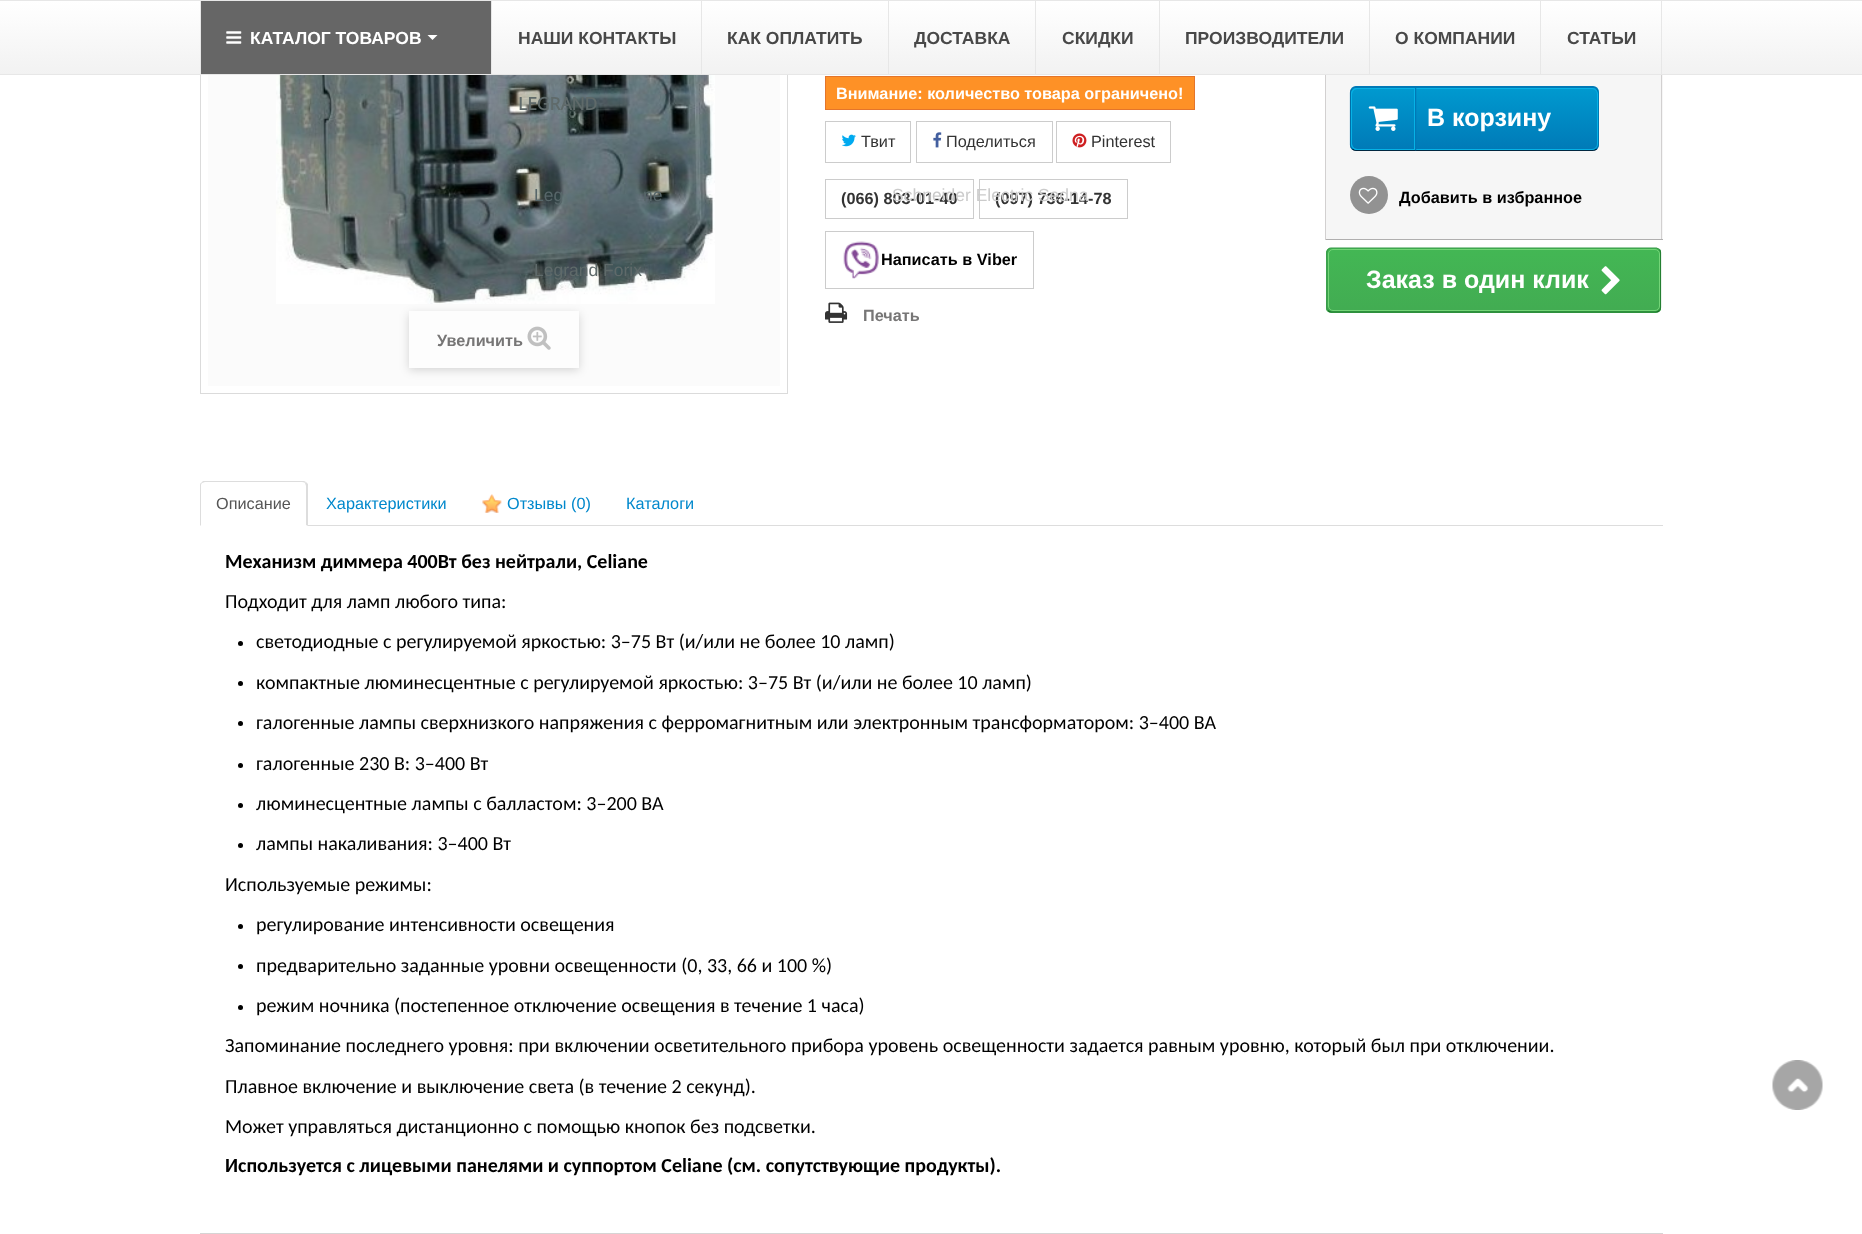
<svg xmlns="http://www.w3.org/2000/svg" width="1862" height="1234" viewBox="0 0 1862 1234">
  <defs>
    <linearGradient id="g1" gradientUnits="userSpaceOnUse" x1="931" y1="1.2" x2="931" y2="74"><stop offset="0" stop-color="#ffffff"/><stop offset="1" stop-color="#f2f2f2"/></linearGradient>
    <clipPath id="clip1"><rect x="1350" y="86" width="249" height="65" rx="6"/></clipPath>
    <linearGradient id="g2" gradientUnits="userSpaceOnUse" x1="1474" y1="25" x2="1474" y2="88"><stop offset="0" stop-color="#009ad0"/><stop offset="1" stop-color="#007ab7"/></linearGradient>
    <linearGradient id="g3" gradientUnits="userSpaceOnUse" x1="1474" y1="87" x2="1474" y2="150"><stop offset="0" stop-color="#009ad0"/><stop offset="1" stop-color="#007ab7"/></linearGradient>
    <clipPath id="clip2"><rect x="1326" y="248" width="335" height="65" rx="5"/></clipPath>
    <linearGradient id="g4" gradientUnits="userSpaceOnUse" x1="1494" y1="249" x2="1494" y2="311"><stop offset="0" stop-color="#43b754"/><stop offset="1" stop-color="#42ac52"/></linearGradient>
    <clipPath id="clip3"><path d="M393 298H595V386H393ZM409 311H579V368H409Z" clip-rule="evenodd"/></clipPath>
    <filter id="blur1" x="-50%" y="-200%" width="200%" height="500%"><feGaussianBlur stdDeviation="5"/></filter>
  </defs>
  <rect width="100%" height="100%" fill="#ffffff"/>
  <rect x="200.5" y="-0.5" width="587" height="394" fill="none" stroke="#dbdbdb"/>
  <rect x="0" y="1" width="1862" height="73" fill="url(#g1)"/>
  <rect x="0" y="0" width="1862" height="1" fill="#e7e7e7"/>
  <rect x="0" y="74" width="1862" height="1" fill="#e7e7e7"/>
  <rect x="491" y="1" width="1" height="73" fill="#e7e7e7"/>
  <rect x="200" y="1" width="1" height="73" fill="#e7e7e7"/>
  <rect x="201" y="1" width="290" height="73" fill="#666666"/>
  <image x="226" y="31" width="16" height="13" href="img1.png"/>
  <text x="250" y="44" font-family="Liberation Sans" font-size="17.5" font-weight="bold" fill="#ffffff">КАТАЛОГ ТОВАРОВ</text>
  <path d="M427.5 35H437.5L432.5 40Z" fill="#ffffff"/>
  <rect x="208" y="75" width="572" height="311" fill="#fbfbfb"/>
  <image x="276" y="75" width="439" height="229" href="img11.png"/>
  <text x="518" y="110" font-family="Open Sans" font-size="17.5" font-weight="bold" fill="#5f6a6a">LEGRAND</text>
  <text x="534" y="201" font-family="Liberation Sans" font-size="17.5" fill="#576669">Leg</text>
  <text x="643" y="201" font-family="Liberation Sans" font-size="17.5" fill="#576669">ne</text>
  <text x="534" y="276" font-family="Liberation Sans" font-size="17.5" fill="#5f6a6a">Legrand Forix</text>
  <rect x="825.5" y="179.5" width="148" height="39" fill="none" stroke="#cccccc"/>
  <text x="841" y="204" font-family="Liberation Sans" font-size="16.25" font-weight="bold" fill="#333333">(066) 803-01-40</text>
  <rect x="979.5" y="179.5" width="148" height="39" fill="none" stroke="#cccccc"/>
  <text x="995" y="204" font-family="Liberation Sans" font-size="16.25" font-weight="bold" fill="#333333">(097) 736-14-78</text>
  <text x="892" y="201" font-family="Liberation Sans" font-size="17.5" fill="#cbcbcb">Schneider Electric Sedna</text>
  <rect x="701" y="1" width="1" height="73" fill="#e7e7e7"/>
  <text x="518" y="44" font-family="Liberation Sans" font-size="17.5" font-weight="bold" fill="#484848">НАШИ КОНТАКТЫ</text>
  <rect x="888" y="1" width="1" height="73" fill="#e7e7e7"/>
  <text x="727" y="44" font-family="Liberation Sans" font-size="17.5" font-weight="bold" fill="#484848">КАК ОПЛАТИТЬ</text>
  <rect x="1035" y="1" width="1" height="73" fill="#e7e7e7"/>
  <text x="914" y="44" font-family="Liberation Sans" font-size="17.5" font-weight="bold" fill="#484848">ДОСТАВКА</text>
  <rect x="1159" y="1" width="1" height="73" fill="#e7e7e7"/>
  <text x="1062" y="44" font-family="Liberation Sans" font-size="17.5" font-weight="bold" fill="#484848">СКИДКИ</text>
  <rect x="1369" y="1" width="1" height="73" fill="#e7e7e7"/>
  <text x="1185" y="44" font-family="Liberation Sans" font-size="17.5" font-weight="bold" fill="#484848">ПРОИЗВОДИТЕЛИ</text>
  <rect x="1540" y="1" width="1" height="73" fill="#e7e7e7"/>
  <text x="1395" y="44" font-family="Liberation Sans" font-size="17.5" font-weight="bold" fill="#484848">О КОМПАНИИ</text>
  <rect x="1661" y="1" width="1" height="73" fill="#e7e7e7"/>
  <text x="1567" y="44" font-family="Liberation Sans" font-size="17.5" font-weight="bold" fill="#484848">СТАТЬИ</text>
  <rect x="825.5" y="76.5" width="369" height="33" fill="#fe9126" stroke="#e4752b"/>
  <text x="836" y="99" font-family="Liberation Sans" font-size="16.25" font-weight="bold" fill="#ffffff">Внимание: количество товара ограничено!</text>
  <rect x="825.5" y="121.5" width="85" height="41" fill="none" stroke="#cccccc"/>
  <image x="842" y="134" width="14" height="13" href="img2.png"/>
  <text x="861" y="147" font-family="Liberation Sans" font-size="16.25" fill="#333333">Твит</text>
  <rect x="916.5" y="121.5" width="136" height="41" fill="none" stroke="#cccccc"/>
  <image x="933" y="132" width="9" height="16" href="img3.png"/>
  <text x="946" y="147" font-family="Liberation Sans" font-size="16.25" fill="#333333">Поделиться</text>
  <rect x="1056.5" y="121.5" width="114" height="41" fill="none" stroke="#cccccc"/>
  <image x="1072" y="133" width="15" height="15" href="img4.png"/>
  <text x="1091" y="147" font-family="Liberation Sans" font-size="16.25" fill="#333333">Pinterest</text>
  <rect x="825.5" y="231.5" width="208" height="57" fill="none" stroke="#cccccc"/>
  <image x="843" y="241" width="36" height="38" href="img5.png"/>
  <text x="881" y="265" font-family="Liberation Sans" font-size="16.25" font-weight="bold" fill="#000000">Написать в Viber</text>
  <image x="825" y="302" width="23" height="21" href="img6.png"/>
  <text x="863" y="321" font-family="Liberation Sans" font-size="16.25" font-weight="bold" fill="#777676">Печать</text>
  <rect x="1326" y="75" width="337" height="164" fill="#f6f6f6"/>
  <rect x="1661" y="75" width="1" height="165" fill="#d2d0d0"/>
  <rect x="1325" y="239" width="338" height="1" fill="#b0afaf"/>
  <rect x="1325" y="75" width="1" height="165" fill="#d2d0d0"/>
  <g clip-path="url(#clip1)">
    <rect x="1350" y="86" width="249" height="2" fill="url(#g2)"/>
    <rect x="1350" y="88" width="249" height="62" fill="url(#g3)"/>
  </g>
  <path d="M1352.5 88.5C1353.5 87.5 1355 87 1356 87H1592.5C1594 87 1595.5 87.5 1596.5 88.5" fill="none" stroke="#0079b6" stroke-width="1.2"/>
  <path d="M1596.5 88.5C1597.5 89.5 1598 91 1598 92.5V145C1598 146.5 1597.5 148 1596.5 149" fill="none" stroke="#006fa8" stroke-width="1.2"/>
  <path d="M1596.5 149C1595.5 150 1594 150.5 1592.5 150.5H1356C1355 150.5 1353.5 150 1352.5 149" fill="none" stroke="#012740" stroke-width="1.2"/>
  <path d="M1352.5 149C1351 148 1350.5 146.5 1350.5 145V92.5C1350.5 91 1351 89.5 1352.5 88.5" fill="none" stroke="#006fa8" stroke-width="1.2"/>
  <rect x="1351.5" y="88.5" width="246" height="61" rx="5.5" fill="none" stroke="#06b2e6"/>
  <path d="M1357 88.5H1414.5V149.5H1357C1354 149.5 1351.5 147 1351.5 144V94C1351.5 91 1354 88.5 1357 88.5Z" fill="none" stroke="#06b2e6"/>
  <image x="1368" y="106" width="30" height="25" href="img7.png"/>
  <image x="1415" y="88" width="2" height="63" href="img8.png"/>
  <text x="1427" y="126" font-family="Liberation Sans" font-size="25" font-weight="bold" fill="#ffffff">В корзину</text>
  <circle cx="1369" cy="195" r="19" fill="#929292"/>
  <image x="1358" y="187" width="20" height="17" href="img9.png"/>
  <text x="1399" y="203" font-family="Liberation Sans" font-size="16.25" font-weight="bold" fill="#000000">Добавить в избранное</text>
  <rect x="1326" y="248" width="335" height="65" rx="5" fill="#43b754"/>
  <g clip-path="url(#clip2)">
    <rect x="1326" y="249" width="335" height="62" fill="url(#g4)"/>
  </g>
  <path d="M1659.5 249.5C1660 250 1660.5 251.5 1660.5 252.5V307.5C1660.5 308.5 1660 310 1659.5 310.5" fill="none" stroke="#247f32" stroke-width="1.2"/>
  <path d="M1659.5 310.5C1658.5 311.5 1657.5 312 1656 312H1331C1330 312 1329 311.5 1328 310.5" fill="none" stroke="#1a6d27" stroke-width="1.2"/>
  <path d="M1328 310.5C1325.5 308 1327 300 1327 298.5V261.5C1327 258.5 1325 248 1331 248H1656.5L1659.5 249.5" fill="none" stroke="#399a49" stroke-width="1.2"/>
  <rect x="1328.5" y="249.5" width="331" height="61" rx="4.5" fill="none" stroke="#74d578"/>
  <text x="1366" y="288" font-family="Liberation Sans" font-size="25" font-weight="bold" fill="#ffffff">Заказ в один клик</text>
  <image x="1601" y="266" width="19" height="29" href="img10.png"/>
  <g clip-path="url(#clip3)">
    <rect x="409" y="314" width="170" height="56" fill="#000000" fill-opacity="0.16" filter="url(#blur1)"/>
  </g>
  <rect x="409" y="311" width="170" height="57" fill="#ffffff" fill-opacity="0.5"/>
  <text x="437" y="346" font-family="Liberation Sans" font-size="16.25" font-weight="bold" fill="#777676">Увеличить</text>
  <image x="527" y="326" width="24" height="24" href="img12.png"/>
  <rect x="308" y="525" width="1355" height="1" fill="#dddddd"/>
  <path d="M205 482L202 483H201L203 481H304L306 482L305 483C305 483 304 482 302 482Z" fill="#dddddd"/>
  <path d="M308 526L306 525V486L305 483L306 482L308 484Z" fill="#dddddd"/>
  <path d="M200 486V526L201 525V486C201 485 201 484 202 483H201C200 483 200 485 200 486Z" fill="#dddddd"/>
  <text x="216" y="509" font-family="Liberation Sans" font-size="16.25" fill="#555555">Описание</text>
  <text x="326" y="509" font-family="Liberation Sans" font-size="16.25" fill="#0088cc">Характеристики</text>
  <image x="482" y="494" width="20" height="19" href="img13.png"/>
  <text x="507" y="509" font-family="Liberation Sans" font-size="16.25" fill="#0088cc">Отзывы (0)</text>
  <text x="626" y="509" font-family="Liberation Sans" font-size="16.25" fill="#0088cc">Каталоги</text>
  <text x="225" y="568" font-family="Carlito" font-size="20" font-weight="bold" fill="#000000">Механизм диммера 400Вт без нейтрали, Celiane</text>
  <text x="225" y="608" font-family="Carlito" font-size="20" fill="#000000">Подходит для ламп любого типа:</text>
  <circle cx="240.5" cy="643.5" r="2.5" fill="#000000"/>
  <text x="256" y="648" font-family="Carlito" font-size="20" fill="#000000">светодиодные с регулируемой яркостью: 3–75 Вт (и/или не более 10 ламп)</text>
  <circle cx="240.5" cy="683.5" r="2.5" fill="#000000"/>
  <text x="256" y="689" font-family="Carlito" font-size="20" fill="#000000">компактные люминесцентные с регулируемой яркостью: 3–75 Вт (и/или не более 10 ламп)</text>
  <circle cx="240.5" cy="723.5" r="2.5" fill="#000000"/>
  <text x="256" y="729" font-family="Carlito" font-size="20" fill="#000000">галогенные лампы сверхнизкого напряжения с ферромагнитным или электронным трансформатором: 3–400 ВА</text>
  <circle cx="240.5" cy="765.5" r="2.5" fill="#000000"/>
  <text x="256" y="770" font-family="Carlito" font-size="20" fill="#000000">галогенные 230 В: 3–400 Вт</text>
  <circle cx="240.5" cy="805.5" r="2.5" fill="#000000"/>
  <text x="256" y="810" font-family="Carlito" font-size="20" fill="#000000">люминесцентные лампы с балластом: 3–200 ВА</text>
  <circle cx="240.5" cy="845.5" r="2.5" fill="#000000"/>
  <text x="256" y="850" font-family="Carlito" font-size="20" fill="#000000">лампы накаливания: 3–400 Вт</text>
  <text x="225" y="891" font-family="Carlito" font-size="20" fill="#000000">Используемые режимы:</text>
  <circle cx="240.5" cy="926.5" r="2.5" fill="#000000"/>
  <text x="256" y="931" font-family="Carlito" font-size="20" fill="#000000">регулирование интенсивности освещения</text>
  <circle cx="240.5" cy="966.5" r="2.5" fill="#000000"/>
  <text x="256" y="972" font-family="Carlito" font-size="20" fill="#000000">предварительно заданные уровни освещенности (0, 33, 66 и 100 %)</text>
  <circle cx="240.5" cy="1007.5" r="2.5" fill="#000000"/>
  <text x="256" y="1012" font-family="Carlito" font-size="20" fill="#000000">режим ночника (постепенное отключение освещения в течение 1 часа)</text>
  <text x="225" y="1052" font-family="Carlito" font-size="20" fill="#000000">Запоминание последнего уровня: при включении осветительного прибора уровень освещенности задается равным уровню, который был при отключении.</text>
  <text x="225" y="1093" font-family="Carlito" font-size="20" fill="#000000">Плавное включение и выключение света (в течение 2 секунд).</text>
  <text x="225" y="1133" font-family="Carlito" font-size="20" fill="#000000">Может управляться дистанционно с помощью кнопок без подсветки.</text>
  <text x="225" y="1172" font-family="Carlito" font-size="20" font-weight="bold" fill="#000000">Используется с лицевыми панелями и суппортом Celiane (см. сопутствующие продукты).</text>
  <rect x="200" y="1233" width="1463" height="1" fill="#d6d4d4"/>
  <image x="1772" y="1060" width="51" height="50" href="img14.png"/>
</svg>
